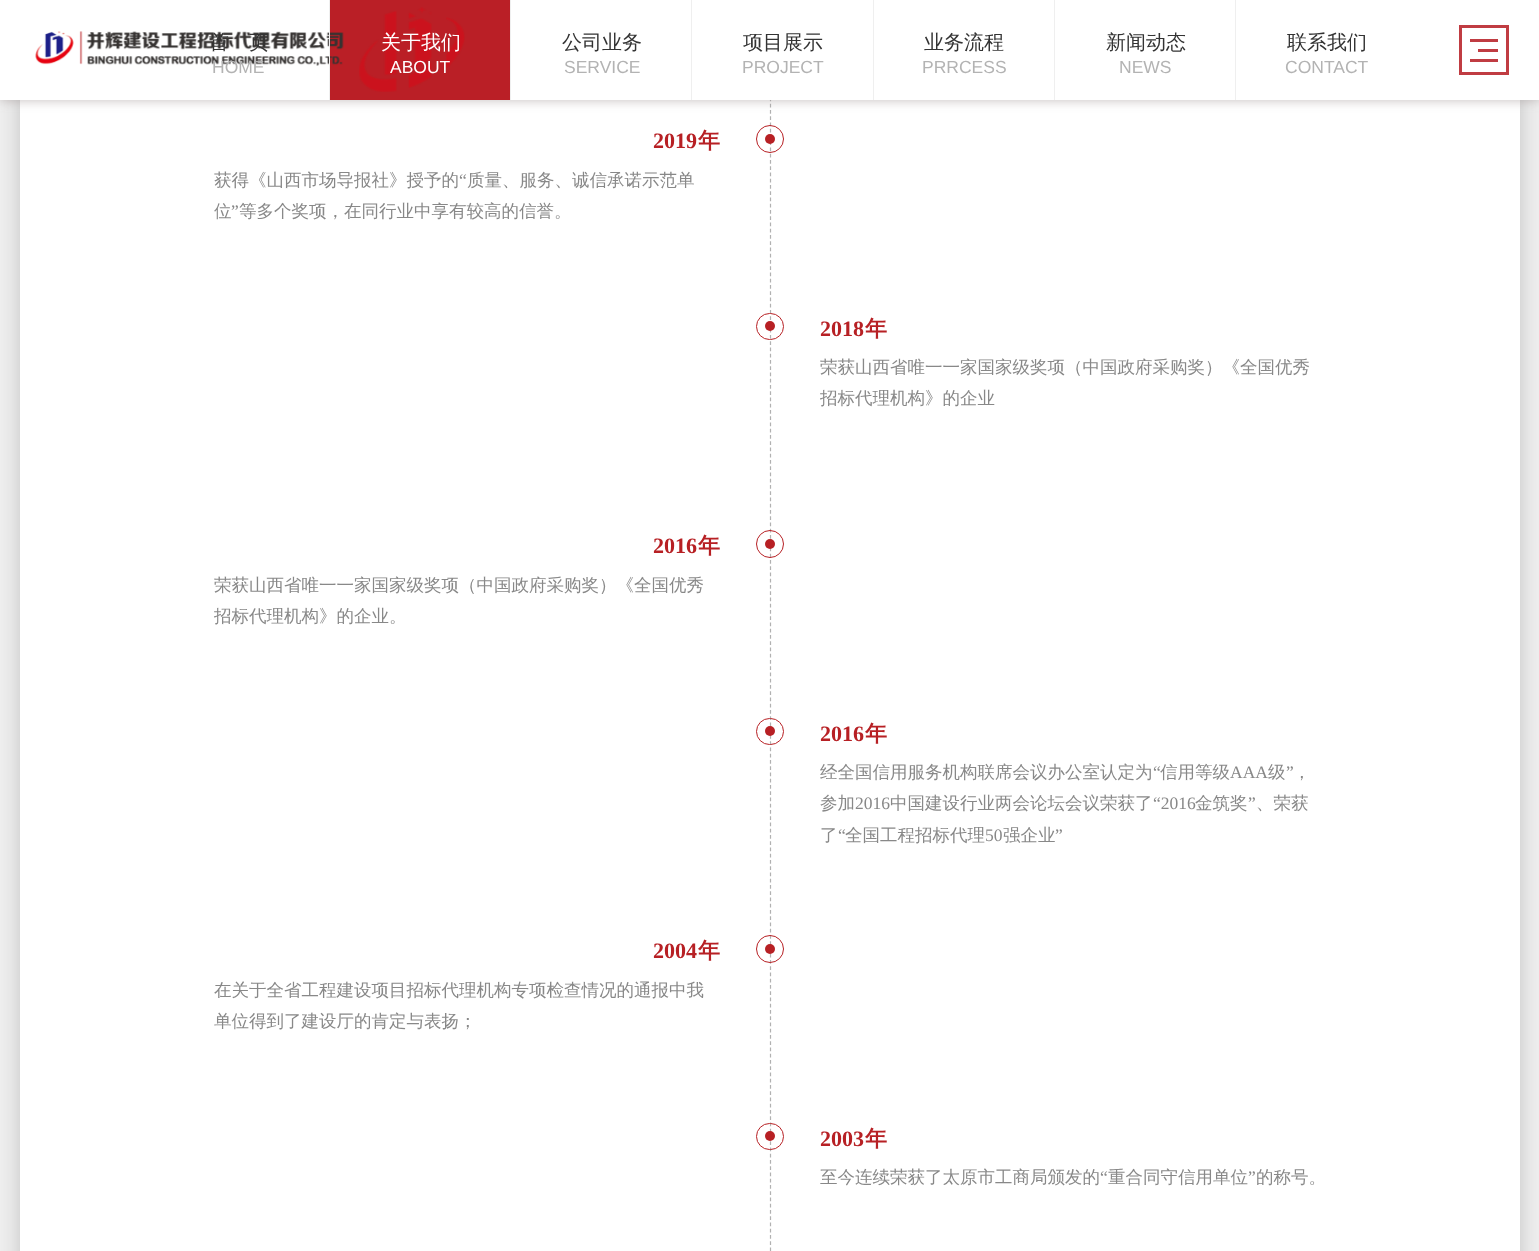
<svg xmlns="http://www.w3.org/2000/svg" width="1539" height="1251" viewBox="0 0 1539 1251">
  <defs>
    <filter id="blur1" x="-50%" y="-200%" width="200%" height="500%"><feGaussianBlur stdDeviation="11"/></filter>
    <filter id="blur2" x="-50%" y="-200%" width="200%" height="500%"><feGaussianBlur stdDeviation="6"/></filter>
  </defs>
  <rect width="100%" height="100%" fill="#efefef"/>
  <rect x="20" y="-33" width="1500" height="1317" fill="#0c0306" fill-opacity="0.19" filter="url(#blur1)"/>
  <rect x="20" y="100" width="1500" height="1151" fill="#ffffff"/>
  <path d="M770.5 85V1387.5" fill="none" stroke="#b1b1b1" stroke-width="1.2" stroke-dasharray="3.75 2.5"/>
  <rect x="0" y="0" width="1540" height="100" fill="#9b8f8f" fill-opacity="0.6" filter="url(#blur2)"/>
  <rect x="0" y="0" width="1539" height="100" fill="#ffffff"/>
  <rect x="330" y="0" width="180" height="100" fill="#ba1f26"/>
  <image x="35" y="31" width="309" height="35" href="img1.png"/>
  <text x="209" y="49" font-family="WenQuanYi Zen Hei" font-size="20" font-weight="500" fill="#333333">首</text>
  <text x="249" y="49" font-family="WenQuanYi Zen Hei" font-size="20" font-weight="500" fill="#333333">页</text>
  <text x="212" y="73" font-family="Liberation Sans" font-size="17.5" fill="#b3b3b3">HOME</text>
  <rect x="329" y="0" width="1" height="100" fill="#efefef"/>
  <image x="408" y="7" width="24" height="81" href="img2.png"/>
  <image x="359" y="11" width="38" height="81" href="img3.png"/>
  <image x="446" y="17" width="19" height="51" href="img4.png"/>
  <text x="381" y="49" font-family="WenQuanYi Zen Hei" font-size="20" font-weight="500" fill="#ffffff">关于我们</text>
  <text x="390" y="73" font-family="Liberation Sans" font-size="17.5" fill="#ffffff">ABOUT</text>
  <rect x="510" y="0" width="1" height="100" fill="#efefef"/>
  <text x="562" y="49" font-family="WenQuanYi Zen Hei" font-size="20" font-weight="500" fill="#333333">公司业务</text>
  <text x="564" y="73" font-family="Liberation Sans" font-size="17.5" fill="#b3b3b3">SERVICE</text>
  <rect x="691" y="0" width="1" height="100" fill="#efefef"/>
  <text x="743" y="49" font-family="WenQuanYi Zen Hei" font-size="20" font-weight="500" fill="#333333">项目展示</text>
  <text x="742" y="73" font-family="Liberation Sans" font-size="17.5" fill="#b3b3b3">PROJECT</text>
  <rect x="873" y="0" width="1" height="100" fill="#efefef"/>
  <text x="924" y="49" font-family="WenQuanYi Zen Hei" font-size="20" font-weight="500" fill="#333333">业务流程</text>
  <text x="922" y="73" font-family="Liberation Sans" font-size="17.5" fill="#b3b3b3">PRRCESS</text>
  <rect x="1054" y="0" width="1" height="100" fill="#efefef"/>
  <text x="1106" y="49" font-family="WenQuanYi Zen Hei" font-size="20" font-weight="500" fill="#333333">新闻动态</text>
  <text x="1119" y="73" font-family="Liberation Sans" font-size="17.5" fill="#b3b3b3">NEWS</text>
  <rect x="1235" y="0" width="1" height="100" fill="#efefef"/>
  <text x="1287" y="49" font-family="WenQuanYi Zen Hei" font-size="20" font-weight="500" fill="#333333">联系我们</text>
  <text x="1285" y="73" font-family="Liberation Sans" font-size="17.5" fill="#b3b3b3">CONTACT</text>
  <rect x="1460.5" y="26.5" width="47" height="47" fill="none" stroke="#c03c42" stroke-width="3"/>
  <rect x="1478" y="49" width="20" height="3" fill="#c03c42"/>
  <rect x="1470" y="39" width="28" height="3" fill="#c03c42"/>
  <rect x="1470" y="59" width="28" height="3" fill="#c03c42"/>
  <text x="653" y="148" font-family="Liberation Serif" font-size="22" font-weight="bold" fill="#b72024">2019</text>
  <text x="698" y="148" font-family="WenQuanYi Zen Hei" font-size="22" font-weight="bold" fill="#b72024">年</text>
  <circle cx="770" cy="139" r="5" fill="#b72024"/>
  <circle cx="770" cy="139" r="13.5" fill="none" stroke="#b72024"/>
  <text x="214" y="186" font-family="WenQuanYi Zen Hei" font-size="17.5" font-weight="500" fill="#888888">获得《山西市场导报社》授予的</text>
  <text x="459" y="186" font-family="Liberation Serif" font-size="17.5" fill="#888888">“</text>
  <text x="467" y="186" font-family="WenQuanYi Zen Hei" font-size="17.5" font-weight="500" fill="#888888">质量、服务、诚信承诺示范单</text>
  <text x="214" y="217" font-family="WenQuanYi Zen Hei" font-size="17.5" font-weight="500" fill="#888888">位</text>
  <text x="231" y="217" font-family="Liberation Serif" font-size="17.5" fill="#888888">”</text>
  <text x="239" y="217" font-family="WenQuanYi Zen Hei" font-size="17.5" font-weight="500" fill="#888888">等多个奖项，在同行业中享有较高的信誉。</text>
  <circle cx="770" cy="326" r="5" fill="#b72024"/>
  <rect x="756.5" y="313.5" width="27" height="26" rx="13" fill="none" stroke="#b72024"/>
  <text x="820" y="336" font-family="Liberation Serif" font-size="22" font-weight="bold" fill="#b72024">2018</text>
  <text x="865" y="336" font-family="WenQuanYi Zen Hei" font-size="22" font-weight="bold" fill="#b72024">年</text>
  <text x="820" y="373" font-family="WenQuanYi Zen Hei" font-size="17.5" font-weight="500" fill="#888888">荣获山西省唯一一家国家级奖项（中国政府采购奖）《全国优秀</text>
  <text x="820" y="404" font-family="WenQuanYi Zen Hei" font-size="17.5" font-weight="500" fill="#888888">招标代理机构》的企业</text>
  <text x="653" y="553" font-family="Liberation Serif" font-size="22" font-weight="bold" fill="#b72024">2016</text>
  <text x="698" y="553" font-family="WenQuanYi Zen Hei" font-size="22" font-weight="bold" fill="#b72024">年</text>
  <circle cx="770" cy="544" r="5" fill="#b72024"/>
  <circle cx="770" cy="544" r="13.5" fill="none" stroke="#b72024"/>
  <text x="214" y="591" font-family="WenQuanYi Zen Hei" font-size="17.5" font-weight="500" fill="#888888">荣获山西省唯一一家国家级奖项（中国政府采购奖）《全国优秀</text>
  <text x="214" y="622" font-family="WenQuanYi Zen Hei" font-size="17.5" font-weight="500" fill="#888888">招标代理机构》的企业。</text>
  <circle cx="770" cy="731" r="5" fill="#b72024"/>
  <rect x="756.5" y="718.5" width="27" height="26" rx="13" fill="none" stroke="#b72024"/>
  <text x="820" y="741" font-family="Liberation Serif" font-size="22" font-weight="bold" fill="#b72024">2016</text>
  <text x="865" y="741" font-family="WenQuanYi Zen Hei" font-size="22" font-weight="bold" fill="#b72024">年</text>
  <text x="820" y="778" font-family="WenQuanYi Zen Hei" font-size="17.5" font-weight="500" fill="#888888">经全国信用服务机构联席会议办公室认定为</text>
  <text x="1153" y="778" font-family="Liberation Serif" font-size="17.5" fill="#888888">“</text>
  <text x="1160" y="778" font-family="WenQuanYi Zen Hei" font-size="17.5" font-weight="500" fill="#888888">信用等级</text>
  <text x="1230" y="778" font-family="Liberation Serif" font-size="17.5" fill="#888888">AAA</text>
  <text x="1268" y="778" font-family="WenQuanYi Zen Hei" font-size="17.5" font-weight="500" fill="#888888">级</text>
  <text x="1286" y="778" font-family="Liberation Serif" font-size="17.5" fill="#888888">”</text>
  <text x="1293" y="778" font-family="WenQuanYi Zen Hei" font-size="17.5" font-weight="500" fill="#888888">，</text>
  <text x="820" y="809" font-family="WenQuanYi Zen Hei" font-size="17.5" font-weight="500" fill="#888888">参加</text>
  <text x="855" y="809" font-family="Liberation Serif" font-size="17.5" fill="#888888">2016</text>
  <text x="890" y="809" font-family="WenQuanYi Zen Hei" font-size="17.5" font-weight="500" fill="#888888">中国建设行业两会论坛会议荣获了</text>
  <text x="1153" y="809" font-family="Liberation Serif" font-size="17.5" fill="#888888">“2016</text>
  <text x="1195" y="809" font-family="WenQuanYi Zen Hei" font-size="17.5" font-weight="500" fill="#888888">金筑奖</text>
  <text x="1248" y="809" font-family="Liberation Serif" font-size="17.5" fill="#888888">”</text>
  <text x="1256" y="809" font-family="WenQuanYi Zen Hei" font-size="17.5" font-weight="500" fill="#888888">、荣获</text>
  <text x="820" y="841" font-family="WenQuanYi Zen Hei" font-size="17.5" font-weight="500" fill="#888888">了</text>
  <text x="838" y="841" font-family="Liberation Serif" font-size="17.5" fill="#888888">“</text>
  <text x="845" y="841" font-family="WenQuanYi Zen Hei" font-size="17.5" font-weight="500" fill="#888888">全国工程招标代理</text>
  <text x="985" y="841" font-family="Liberation Serif" font-size="17.5" fill="#888888">50</text>
  <text x="1003" y="841" font-family="WenQuanYi Zen Hei" font-size="17.5" font-weight="500" fill="#888888">强企业</text>
  <text x="1055" y="841" font-family="Liberation Serif" font-size="17.5" fill="#888888">”</text>
  <text x="653" y="958" font-family="Liberation Serif" font-size="22" font-weight="bold" fill="#b72024">2004</text>
  <text x="698" y="958" font-family="WenQuanYi Zen Hei" font-size="22" font-weight="bold" fill="#b72024">年</text>
  <circle cx="770" cy="949" r="5" fill="#b72024"/>
  <circle cx="770" cy="949" r="13.5" fill="none" stroke="#b72024"/>
  <text x="214" y="996" font-family="WenQuanYi Zen Hei" font-size="17.5" font-weight="500" fill="#888888">在关于全省工程建设项目招标代理机构专项检查情况的通报中我</text>
  <text x="214" y="1027" font-family="WenQuanYi Zen Hei" font-size="17.5" font-weight="500" fill="#888888">单位得到了建设厅的肯定与表扬；</text>
  <circle cx="770" cy="1136" r="5" fill="#b72024"/>
  <rect x="756.5" y="1123.5" width="27" height="26" rx="13" fill="none" stroke="#b72024"/>
  <text x="820" y="1146" font-family="Liberation Serif" font-size="22" font-weight="bold" fill="#b72024">2003</text>
  <text x="865" y="1146" font-family="WenQuanYi Zen Hei" font-size="22" font-weight="bold" fill="#b72024">年</text>
  <text x="820" y="1183" font-family="WenQuanYi Zen Hei" font-size="17.5" font-weight="500" fill="#888888">至今连续荣获了太原市工商局颁发的</text>
  <text x="1100" y="1183" font-family="Liberation Serif" font-size="17.5" fill="#888888">“</text>
  <text x="1108" y="1183" font-family="WenQuanYi Zen Hei" font-size="17.5" font-weight="500" fill="#888888">重合同守信用单位</text>
  <text x="1248" y="1183" font-family="Liberation Serif" font-size="17.5" fill="#888888">”</text>
  <text x="1256" y="1183" font-family="WenQuanYi Zen Hei" font-size="17.5" font-weight="500" fill="#888888">的称号。</text>
</svg>
